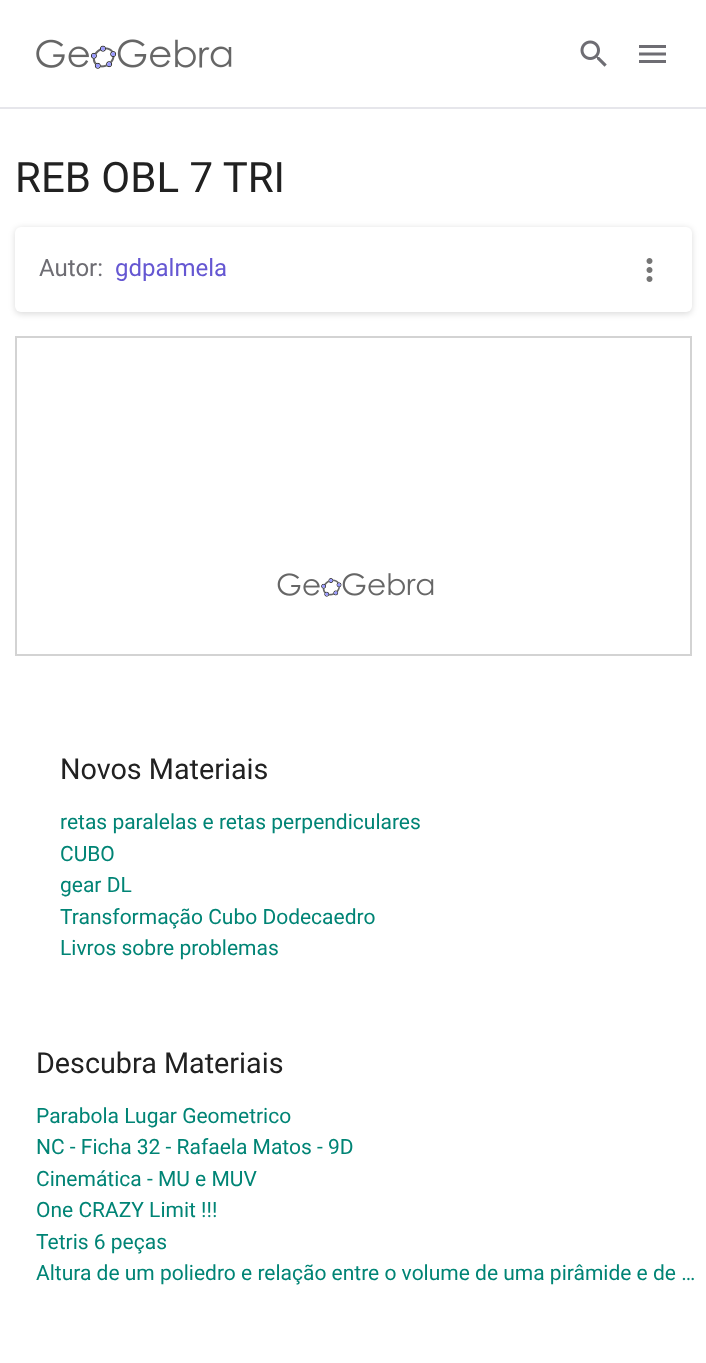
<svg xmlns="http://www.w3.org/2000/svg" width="706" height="1363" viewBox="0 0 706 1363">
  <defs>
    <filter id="blur1" x="-50%" y="-200%" width="200%" height="500%"><feGaussianBlur stdDeviation="3"/></filter>
  </defs>
  <rect width="100%" height="100%" fill="#ffffff"/>
  <rect x="0" y="107" width="706" height="2" fill="#e6e6eb"/>
  <image x="36" y="39" width="196" height="30" href="img1.png"/>
  <image x="580" y="40" width="27" height="27" href="img2.png"/>
  <image x="639" y="45" width="27" height="18" href="img3.png"/>
  <text x="15" y="192" font-family="Roboto" font-size="42" fill="#212121">REB OBL 7 TRI</text>
  <rect x="15" y="228" width="677" height="86" rx="6" fill="#1c1c1f" fill-opacity="0.14" filter="url(#blur1)"/>
  <rect x="15" y="227" width="677" height="85" rx="6" fill="#ffffff"/>
  <text x="39" y="276" font-family="Roboto" font-size="24" fill="#6e6d73">Autor:</text>
  <text x="115" y="276" font-family="Roboto" font-size="24" fill="#6557d2">gdpalmela</text>
  <image x="646" y="258" width="7" height="24" href="img4.png"/>
  <image x="277" y="573" width="157" height="24" href="img5.png"/>
  <rect x="16" y="337" width="675" height="318" fill="none" stroke="#d3d3d3" stroke-width="2"/>
  <text x="60" y="779" font-family="Roboto" font-size="28.75" fill="#212121">Novos Materiais</text>
  <text x="60" y="829" font-family="Roboto" font-size="21" fill="#008475">retas paralelas e retas perpendiculares</text>
  <text x="60" y="861" font-family="Roboto" font-size="21" fill="#008475">CUBO</text>
  <text x="60" y="892" font-family="Roboto" font-size="21" fill="#008475">gear DL</text>
  <text x="60" y="924" font-family="Roboto" font-size="21" fill="#008475">Transformação Cubo Dodecaedro</text>
  <text x="60" y="955" font-family="Roboto" font-size="21" fill="#008475">Livros sobre problemas</text>
  <text x="36" y="1073" font-family="Roboto" font-size="28.75" fill="#212121">Descubra Materiais</text>
  <text x="36" y="1123" font-family="Roboto" font-size="21" fill="#008475">Parabola Lugar Geometrico</text>
  <text x="36" y="1154" font-family="Roboto" font-size="21" fill="#008475">NC - Ficha 32 - Rafaela Matos - 9D</text>
  <text x="36" y="1186" font-family="Roboto" font-size="21" fill="#008475">Cinemática - MU e MUV</text>
  <text x="36" y="1217" font-family="Roboto" font-size="21" fill="#008475">One CRAZY Limit !!!</text>
  <text x="36" y="1249" font-family="Roboto" font-size="21" fill="#008475">Tetris 6 peças</text>
  <text x="36" y="1280" font-family="Roboto" font-size="21" fill="#008475">Altura de um poliedro e relação entre o volume de uma pirâmide e de …</text>
</svg>
